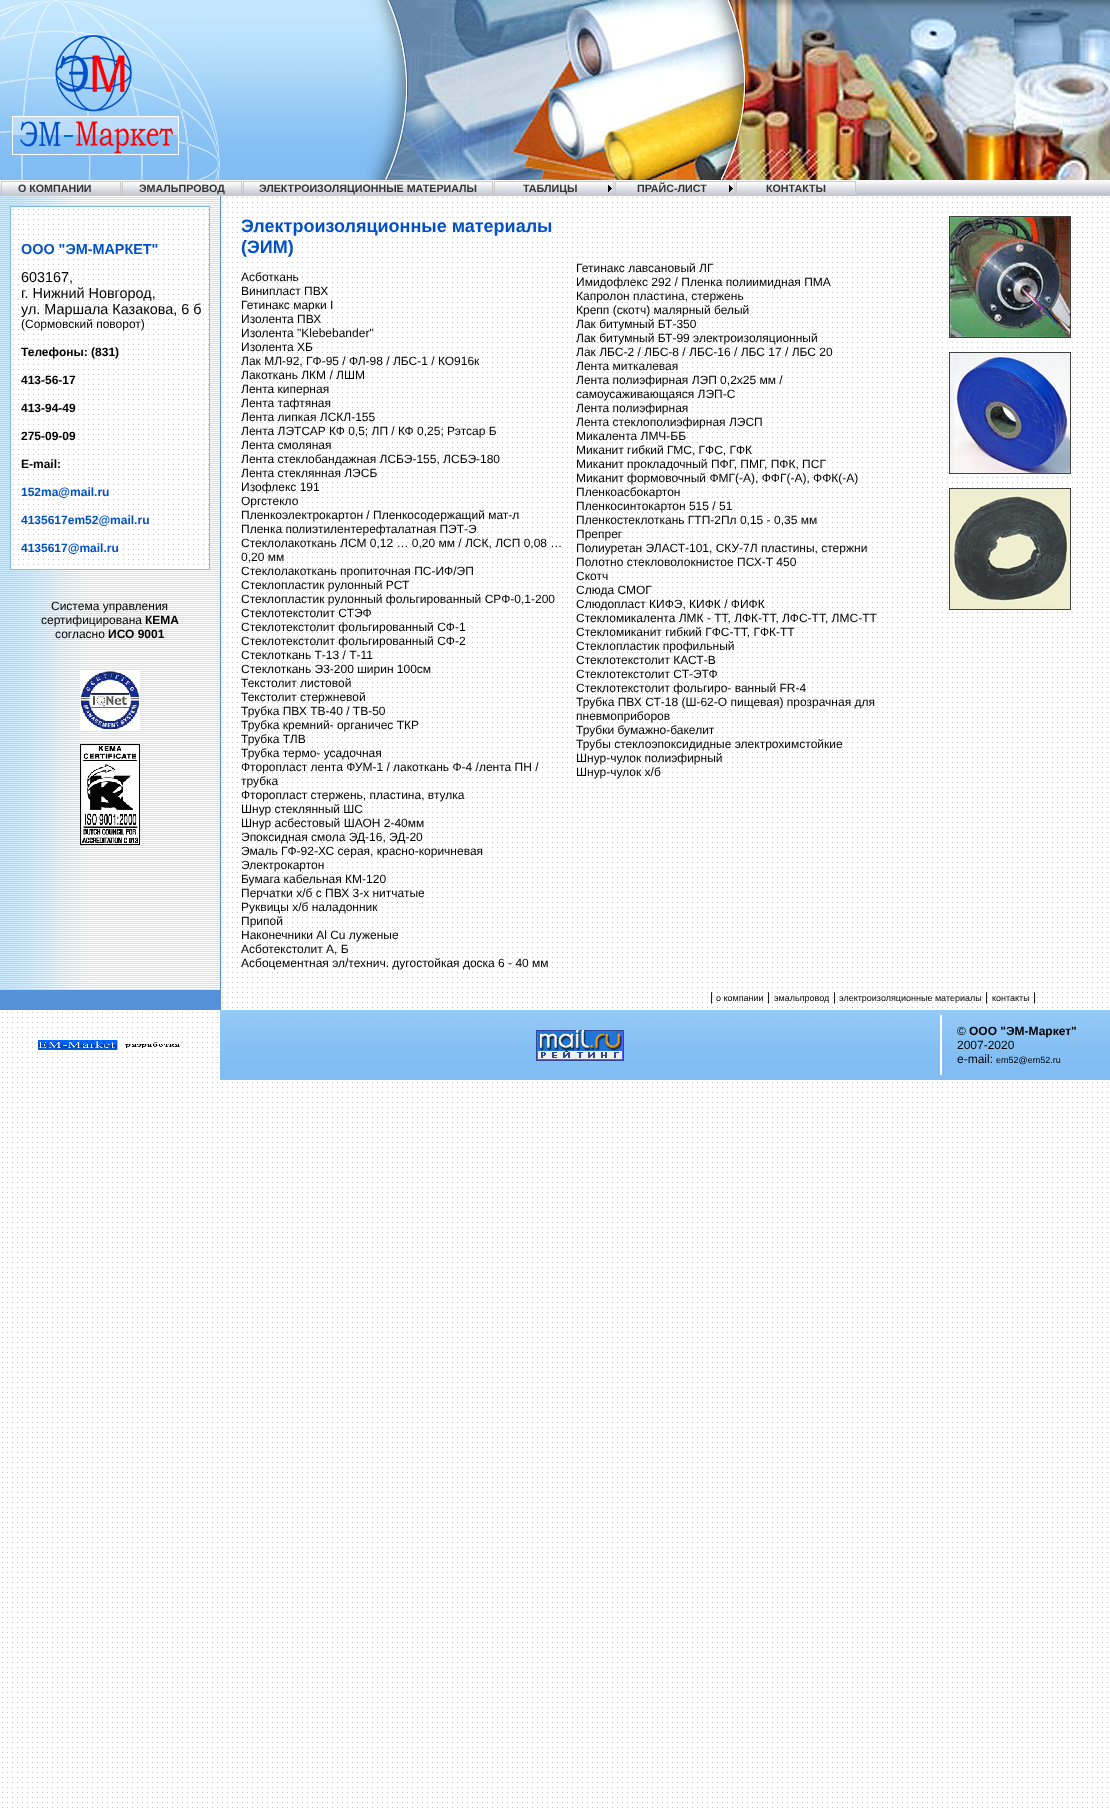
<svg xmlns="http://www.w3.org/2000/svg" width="1110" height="1809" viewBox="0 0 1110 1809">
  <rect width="100%" height="100%" fill="#ffffff"/>
  <image x="2" y="196" width="1106" height="1612" href="img1.png"/>
  <image x="220" y="0" width="146" height="180" href="img2.png"/>
  <image x="0" y="0" width="220" height="180" href="img3.png"/>
  <image x="366" y="0" width="744" height="180" href="img4.png"/>
  <image x="0" y="180" width="1110" height="16" href="img5.png"/>
  <image x="2" y="182" width="118" height="12" href="img6.png"/>
  <rect x="1.5" y="181.5" width="119" height="13" fill="none" stroke="#cccccc"/>
  <text x="18" y="192" font-family="Liberation Sans" font-size="10.7" font-weight="bold" fill="#333333">О КОМПАНИИ</text>
  <image x="123" y="182" width="118" height="12" href="img6.png"/>
  <rect x="122.5" y="181.5" width="119" height="13" fill="none" stroke="#cccccc"/>
  <text x="139" y="192" font-family="Liberation Sans" font-size="10.7" font-weight="bold" fill="#333333">ЭМАЛЬПРОВОД</text>
  <image x="244" y="182" width="248" height="12" href="img7.png"/>
  <rect x="243.5" y="181.5" width="249" height="13" fill="none" stroke="#cccccc"/>
  <text x="259" y="192" font-family="Liberation Sans" font-size="10.7" font-weight="bold" fill="#333333">ЭЛЕКТРОИЗОЛЯЦИОННЫЕ МАТЕРИАЛЫ</text>
  <image x="495" y="182" width="118" height="12" href="img6.png"/>
  <rect x="494.5" y="181.5" width="119" height="13" fill="none" stroke="#cccccc"/>
  <text x="523" y="192" font-family="Liberation Sans" font-size="10.7" font-weight="bold" fill="#333333">ТАБЛИЦЫ</text>
  <image x="608" y="185" width="4" height="7" href="img8.png"/>
  <image x="616" y="182" width="118" height="12" href="img6.png"/>
  <rect x="615.5" y="181.5" width="119" height="13" fill="none" stroke="#cccccc"/>
  <text x="637" y="192" font-family="Liberation Sans" font-size="10.7" font-weight="bold" fill="#333333">ПРАЙС-ЛИСТ</text>
  <image x="729" y="185" width="4" height="7" href="img8.png"/>
  <image x="737" y="182" width="118" height="12" href="img6.png"/>
  <rect x="736.5" y="181.5" width="119" height="13" fill="none" stroke="#cccccc"/>
  <text x="766" y="192" font-family="Liberation Sans" font-size="10.7" font-weight="bold" fill="#333333">КОНТАКТЫ</text>
  <image x="0" y="196" width="220" height="794" href="img9.png"/>
  <rect x="220" y="196" width="1" height="794" fill="#5591d9"/>
  <image x="11" y="207" width="198" height="362" href="img10.png"/>
  <rect x="10.5" y="206.5" width="199" height="363" fill="none" stroke="#81bdf3"/>
  <text x="21" y="254" font-family="Liberation Sans" font-size="14.4" font-weight="bold" fill="#0051c7">ООО "ЭМ-МАРКЕТ"</text>
  <text x="21" y="282" font-family="Liberation Sans" font-size="14.4" fill="#000000">603167,</text>
  <text x="21" y="298" font-family="Liberation Sans" font-size="14.4" fill="#000000">г. Нижний Новгород,</text>
  <text x="21" y="314" font-family="Liberation Sans" font-size="14.4" fill="#000000">ул. Маршала Казакова, 6 б</text>
  <text x="21" y="328" font-family="Liberation Sans" font-size="12" fill="#000000">(Сормовский поворот)</text>
  <text x="21" y="356" font-family="Liberation Sans" font-size="12" font-weight="bold" fill="#000000">Телефоны: (831)</text>
  <text x="21" y="384" font-family="Liberation Sans" font-size="12" font-weight="bold" fill="#000000">413-56-17</text>
  <text x="21" y="412" font-family="Liberation Sans" font-size="12" font-weight="bold" fill="#000000">413-94-49</text>
  <text x="21" y="440" font-family="Liberation Sans" font-size="12" font-weight="bold" fill="#000000">275-09-09</text>
  <text x="21" y="468" font-family="Liberation Sans" font-size="12" font-weight="bold" fill="#000000">E-mail:</text>
  <text x="21" y="496" font-family="Liberation Sans" font-size="12" font-weight="bold" fill="#0051c7">152ma@mail.ru</text>
  <text x="21" y="524" font-family="Liberation Sans" font-size="12" font-weight="bold" fill="#0051c7">4135617em52@mail.ru</text>
  <text x="21" y="552" font-family="Liberation Sans" font-size="12" font-weight="bold" fill="#0051c7">4135617@mail.ru</text>
  <text x="51" y="610" font-family="Liberation Sans" font-size="12" fill="#000000">Cистема управления</text>
  <text x="41" y="624" font-family="Liberation Sans" font-size="12" fill="#000000">сертифицирована</text>
  <text x="145" y="624" font-family="Liberation Sans" font-size="12" font-weight="bold" fill="#000000">КЕМА</text>
  <text x="55" y="638" font-family="Liberation Sans" font-size="12" fill="#000000">согласно</text>
  <text x="108" y="638" font-family="Liberation Sans" font-size="12" font-weight="bold" fill="#000000">ИСО 9001</text>
  <image x="80" y="670" width="60" height="60" href="img11.png"/>
  <image x="80" y="744" width="60" height="101" href="img12.png"/>
  <text x="241" y="232" font-family="Liberation Sans" font-size="18" font-weight="bold" fill="#0051c7">Электроизоляционные материалы</text>
  <text x="241" y="253" font-family="Liberation Sans" font-size="18" font-weight="bold" fill="#0051c7">(ЭИМ)</text>
  <text x="241" y="281" font-family="Liberation Sans" font-size="12" fill="#000000">Асботкань</text>
  <text x="241" y="295" font-family="Liberation Sans" font-size="12" fill="#000000">Винипласт ПВХ</text>
  <text x="241" y="309" font-family="Liberation Sans" font-size="12" fill="#000000">Гетинакс марки I</text>
  <text x="241" y="323" font-family="Liberation Sans" font-size="12" fill="#000000">Изолента ПВХ</text>
  <text x="241" y="337" font-family="Liberation Sans" font-size="12" fill="#000000">Изолента "Klebebander"</text>
  <text x="241" y="351" font-family="Liberation Sans" font-size="12" fill="#000000">Изолента ХБ</text>
  <text x="241" y="365" font-family="Liberation Sans" font-size="12" fill="#000000">Лак МЛ-92, ГФ-95 / ФЛ-98 / ЛБС-1 / КО916к</text>
  <text x="241" y="379" font-family="Liberation Sans" font-size="12" fill="#000000">Лакоткань ЛКМ / ЛШМ</text>
  <text x="241" y="393" font-family="Liberation Sans" font-size="12" fill="#000000">Лента киперная</text>
  <text x="241" y="407" font-family="Liberation Sans" font-size="12" fill="#000000">Лента тафтяная</text>
  <text x="241" y="421" font-family="Liberation Sans" font-size="12" fill="#000000">Лента липкая ЛСКЛ-155</text>
  <text x="241" y="435" font-family="Liberation Sans" font-size="12" fill="#000000">Лента ЛЭТСАР КФ 0,5; ЛП / КФ 0,25; Рэтсар Б</text>
  <text x="241" y="449" font-family="Liberation Sans" font-size="12" fill="#000000">Лента смоляная</text>
  <text x="241" y="463" font-family="Liberation Sans" font-size="12" fill="#000000">Лента стеклобандажная ЛСБЭ-155, ЛСБЭ-180</text>
  <text x="241" y="477" font-family="Liberation Sans" font-size="12" fill="#000000">Лента стеклянная ЛЭСБ</text>
  <text x="241" y="491" font-family="Liberation Sans" font-size="12" fill="#000000">Изофлекс 191</text>
  <text x="241" y="505" font-family="Liberation Sans" font-size="12" fill="#000000">Оргстекло</text>
  <text x="241" y="519" font-family="Liberation Sans" font-size="12" fill="#000000">Пленкоэлектрокартон / Пленкосодержащий мат-л</text>
  <text x="241" y="533" font-family="Liberation Sans" font-size="12" fill="#000000">Пленка полиэтилентерефталатная ПЭТ-Э</text>
  <text x="241" y="547" font-family="Liberation Sans" font-size="12" fill="#000000">Стеклолакоткань ЛСМ 0,12 … 0,20 мм / ЛСК, ЛСП 0,08 …</text>
  <text x="241" y="561" font-family="Liberation Sans" font-size="12" fill="#000000">0,20 мм</text>
  <text x="241" y="575" font-family="Liberation Sans" font-size="12" fill="#000000">Стеклолакоткань пропиточная ПС-ИФ/ЭП</text>
  <text x="241" y="589" font-family="Liberation Sans" font-size="12" fill="#000000">Стеклопластик рулонный РСТ</text>
  <text x="241" y="603" font-family="Liberation Sans" font-size="12" fill="#000000">Стеклопластик рулонный фольгированный СРФ-0,1-200</text>
  <text x="241" y="617" font-family="Liberation Sans" font-size="12" fill="#000000">Стеклотекстолит СТЭФ</text>
  <text x="241" y="631" font-family="Liberation Sans" font-size="12" fill="#000000">Стеклотекстолит фольгированный СФ-1</text>
  <text x="241" y="645" font-family="Liberation Sans" font-size="12" fill="#000000">Стеклотекстолит фольгированный СФ-2</text>
  <text x="241" y="659" font-family="Liberation Sans" font-size="12" fill="#000000">Стеклоткань Т-13 / Т-11</text>
  <text x="241" y="673" font-family="Liberation Sans" font-size="12" fill="#000000">Стеклоткань Э3-200 ширин 100см</text>
  <text x="241" y="687" font-family="Liberation Sans" font-size="12" fill="#000000">Текстолит листовой</text>
  <text x="241" y="701" font-family="Liberation Sans" font-size="12" fill="#000000">Текстолит стержневой</text>
  <text x="241" y="715" font-family="Liberation Sans" font-size="12" fill="#000000">Трубка ПВХ ТВ-40 / ТВ-50</text>
  <text x="241" y="729" font-family="Liberation Sans" font-size="12" fill="#000000">Трубка кремний- органичес ТКР</text>
  <text x="241" y="743" font-family="Liberation Sans" font-size="12" fill="#000000">Трубка ТЛВ</text>
  <text x="241" y="757" font-family="Liberation Sans" font-size="12" fill="#000000">Трубка термо- усадочная</text>
  <text x="241" y="771" font-family="Liberation Sans" font-size="12" fill="#000000">Фторопласт лента ФУМ-1 / лакоткань Ф-4 /лента ПН /</text>
  <text x="241" y="785" font-family="Liberation Sans" font-size="12" fill="#000000">трубка</text>
  <text x="241" y="799" font-family="Liberation Sans" font-size="12" fill="#000000">Фторопласт стержень, пластина, втулка</text>
  <text x="241" y="813" font-family="Liberation Sans" font-size="12" fill="#000000">Шнур стеклянный ШС</text>
  <text x="241" y="827" font-family="Liberation Sans" font-size="12" fill="#000000">Шнур асбестовый ШАОН 2-40мм</text>
  <text x="241" y="841" font-family="Liberation Sans" font-size="12" fill="#000000">Эпоксидная смола ЭД-16, ЭД-20</text>
  <text x="241" y="855" font-family="Liberation Sans" font-size="12" fill="#000000">Эмаль ГФ-92-ХС серая, красно-коричневая</text>
  <text x="241" y="869" font-family="Liberation Sans" font-size="12" fill="#000000">Электрокартон</text>
  <text x="241" y="883" font-family="Liberation Sans" font-size="12" fill="#000000">Бумага кабельная КМ-120</text>
  <text x="241" y="897" font-family="Liberation Sans" font-size="12" fill="#000000">Перчатки х/б с ПВХ 3-х нитчатые</text>
  <text x="241" y="911" font-family="Liberation Sans" font-size="12" fill="#000000">Руквицы х/б наладонник</text>
  <text x="241" y="925" font-family="Liberation Sans" font-size="12" fill="#000000">Припой</text>
  <text x="241" y="939" font-family="Liberation Sans" font-size="12" fill="#000000">Наконечники Al Cu луженые</text>
  <text x="241" y="953" font-family="Liberation Sans" font-size="12" fill="#000000">Асботекстолит А, Б</text>
  <text x="241" y="967" font-family="Liberation Sans" font-size="12" fill="#000000">Асбоцементная эл/технич. дугостойкая доска 6 - 40 мм</text>
  <text x="576" y="272" font-family="Liberation Sans" font-size="12" fill="#000000">Гетинакс лавсановый ЛГ</text>
  <text x="576" y="286" font-family="Liberation Sans" font-size="12" fill="#000000">Имидофлекс 292 / Пленка полиимидная ПМА</text>
  <text x="576" y="300" font-family="Liberation Sans" font-size="12" fill="#000000">Капролон пластина, стержень</text>
  <text x="576" y="314" font-family="Liberation Sans" font-size="12" fill="#000000">Крепп (скотч) малярный белый</text>
  <text x="576" y="328" font-family="Liberation Sans" font-size="12" fill="#000000">Лак битумный БТ-350</text>
  <text x="576" y="342" font-family="Liberation Sans" font-size="12" fill="#000000">Лак битумный БТ-99 электроизоляционный</text>
  <text x="576" y="356" font-family="Liberation Sans" font-size="12" fill="#000000">Лак ЛБС-2 / ЛБС-8 / ЛБС-16 / ЛБС 17 / ЛБС 20</text>
  <text x="576" y="370" font-family="Liberation Sans" font-size="12" fill="#000000">Лента миткалевая</text>
  <text x="576" y="384" font-family="Liberation Sans" font-size="12" fill="#000000">Лента полиэфирная ЛЭП 0,2х25 мм /</text>
  <text x="576" y="398" font-family="Liberation Sans" font-size="12" fill="#000000">самоусаживающаяся ЛЭП-С</text>
  <text x="576" y="412" font-family="Liberation Sans" font-size="12" fill="#000000">Лента полиэфирная</text>
  <text x="576" y="426" font-family="Liberation Sans" font-size="12" fill="#000000">Лента стеклополиэфирная ЛЭСП</text>
  <text x="576" y="440" font-family="Liberation Sans" font-size="12" fill="#000000">Микалента ЛМЧ-ББ</text>
  <text x="576" y="454" font-family="Liberation Sans" font-size="12" fill="#000000">Миканит гибкий ГМС, ГФС, ГФК</text>
  <text x="576" y="468" font-family="Liberation Sans" font-size="12" fill="#000000">Миканит прокладочный ПФГ, ПМГ, ПФК, ПСГ</text>
  <text x="576" y="482" font-family="Liberation Sans" font-size="12" fill="#000000">Миканит формовочный ФМГ(-А), ФФГ(-А), ФФК(-А)</text>
  <text x="576" y="496" font-family="Liberation Sans" font-size="12" fill="#000000">Пленкоасбокартон</text>
  <text x="576" y="510" font-family="Liberation Sans" font-size="12" fill="#000000">Пленкосинтокартон 515 / 51</text>
  <text x="576" y="524" font-family="Liberation Sans" font-size="12" fill="#000000">Пленкостеклоткань ГТП-2Пл 0,15 - 0,35 мм</text>
  <text x="576" y="538" font-family="Liberation Sans" font-size="12" fill="#000000">Препрег</text>
  <text x="576" y="552" font-family="Liberation Sans" font-size="12" fill="#000000">Полиуретан ЭЛАСТ-101, СКУ-7Л пластины, стержни</text>
  <text x="576" y="566" font-family="Liberation Sans" font-size="12" fill="#000000">Полотно стекловолокнистое ПСХ-Т 450</text>
  <text x="576" y="580" font-family="Liberation Sans" font-size="12" fill="#000000">Скотч</text>
  <text x="576" y="594" font-family="Liberation Sans" font-size="12" fill="#000000">Слюда СМОГ</text>
  <text x="576" y="608" font-family="Liberation Sans" font-size="12" fill="#000000">Слюдопласт КИФЭ, КИФК / ФИФК</text>
  <text x="576" y="622" font-family="Liberation Sans" font-size="12" fill="#000000">Стекломикалента ЛМК - ТТ, ЛФК-ТТ, ЛФС-ТТ, ЛМС-ТТ</text>
  <text x="576" y="636" font-family="Liberation Sans" font-size="12" fill="#000000">Стекломиканит гибкий ГФС-ТТ, ГФК-ТТ</text>
  <text x="576" y="650" font-family="Liberation Sans" font-size="12" fill="#000000">Стеклопластик профильный</text>
  <text x="576" y="664" font-family="Liberation Sans" font-size="12" fill="#000000">Стеклотекстолит КАСТ-В</text>
  <text x="576" y="678" font-family="Liberation Sans" font-size="12" fill="#000000">Стеклотекстолит СТ-ЭТФ</text>
  <text x="576" y="692" font-family="Liberation Sans" font-size="12" fill="#000000">Стеклотекстолит фольгиро- ванный FR-4</text>
  <text x="576" y="706" font-family="Liberation Sans" font-size="12" fill="#000000">Трубка ПВХ СТ-18 (Ш-62-О пищевая) прозрачная для</text>
  <text x="576" y="720" font-family="Liberation Sans" font-size="12" fill="#000000">пневмоприборов</text>
  <text x="576" y="734" font-family="Liberation Sans" font-size="12" fill="#000000">Трубки бумажно-бакелит</text>
  <text x="576" y="748" font-family="Liberation Sans" font-size="12" fill="#000000">Трубы стеклоэпоксидидные электрохимстойкие</text>
  <text x="576" y="762" font-family="Liberation Sans" font-size="12" fill="#000000">Шнур-чулок полиэфирный</text>
  <text x="576" y="776" font-family="Liberation Sans" font-size="12" fill="#000000">Шнур-чулок х/б</text>
  <rect x="949.5" y="216.5" width="121" height="121" fill="none" stroke="#414141"/>
  <image x="950" y="217" width="120" height="120" href="img13.png"/>
  <rect x="949.5" y="352.5" width="121" height="121" fill="none" stroke="#414141"/>
  <image x="950" y="353" width="120" height="120" href="img14.png"/>
  <rect x="949.5" y="488.5" width="121" height="121" fill="none" stroke="#414141"/>
  <image x="950" y="489" width="120" height="120" href="img15.png"/>
  <rect x="0" y="990" width="221" height="20" fill="#5591d9"/>
  <text x="710" y="1001" font-family="Liberation Sans" font-size="12" fill="#000000">|</text>
  <text x="716" y="1001" font-family="Liberation Sans" font-size="9" fill="#000000">о компании</text>
  <text x="767" y="1001" font-family="Liberation Sans" font-size="12" fill="#000000">|</text>
  <text x="774" y="1001" font-family="Liberation Sans" font-size="9" fill="#000000">эмальпровод</text>
  <text x="833" y="1001" font-family="Liberation Sans" font-size="12" fill="#000000">|</text>
  <text x="839" y="1001" font-family="Liberation Sans" font-size="9" fill="#000000">электроизоляционные материалы</text>
  <text x="985" y="1001" font-family="Liberation Sans" font-size="12" fill="#000000">|</text>
  <text x="992" y="1001" font-family="Liberation Sans" font-size="9" fill="#000000">контакты</text>
  <text x="1033" y="1001" font-family="Liberation Sans" font-size="12" fill="#000000">|</text>
  <image x="38" y="1040" width="142" height="10" href="img16.png"/>
  <image x="220" y="1010" width="720" height="70" href="img17.png"/>
  <image x="536" y="1030" width="88" height="31" href="img18.png"/>
  <image x="940" y="1010" width="170" height="70" href="img19.png"/>
  <rect x="940" y="1015" width="2" height="60" fill="#ffffff"/>
  <text x="957" y="1035" font-family="Liberation Sans" font-size="12" fill="#000000">©</text>
  <text x="969" y="1035" font-family="Liberation Sans" font-size="12" font-weight="bold" fill="#000000">ООО "ЭМ-Маркет"</text>
  <text x="957" y="1049" font-family="Liberation Sans" font-size="12" fill="#000000">2007-2020</text>
  <text x="957" y="1063" font-family="Liberation Sans" font-size="12" fill="#000000">e-mail:</text>
  <text x="996" y="1063" font-family="Liberation Sans" font-size="9" fill="#000000">em52@em52.ru</text>
</svg>
